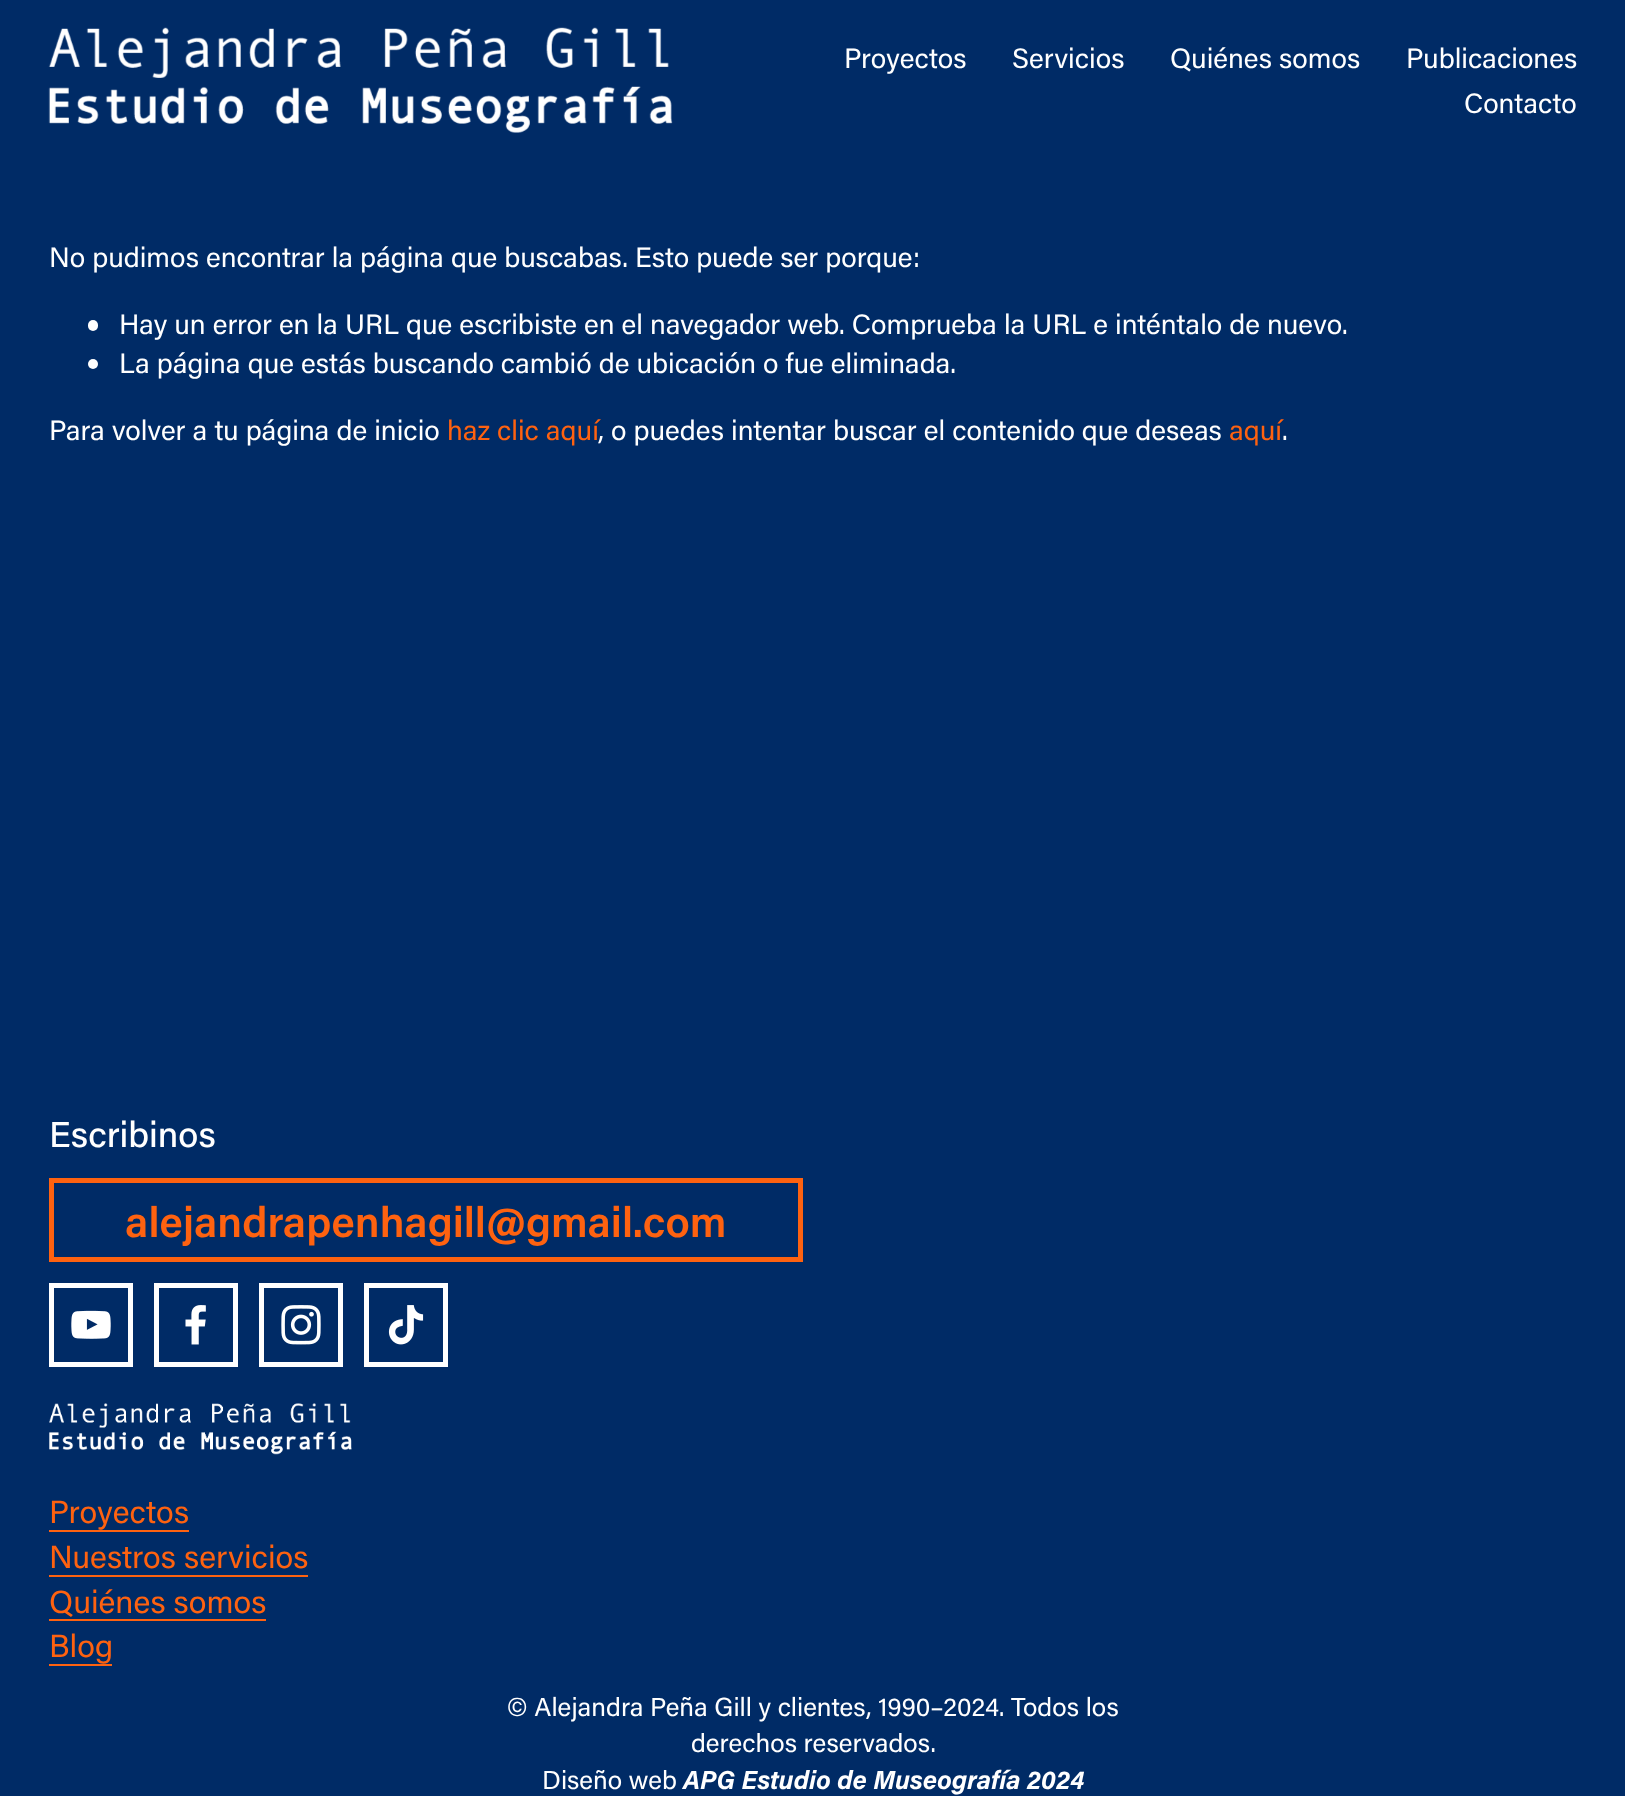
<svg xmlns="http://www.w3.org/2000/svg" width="1625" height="1796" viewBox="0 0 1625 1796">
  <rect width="100%" height="100%" fill="#002b66"/>
  <image x="48" y="27" width="625" height="106" href="img1.png"/>
  <text x="844" y="68" font-family="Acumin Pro" font-size="28" fill="#ffffff">Proyectos</text>
  <text x="1012" y="68" font-family="Acumin Pro" font-size="28" fill="#ffffff">Servicios</text>
  <text x="1170" y="68" font-family="Acumin Pro" font-size="28" fill="#ffffff">Quiénes somos</text>
  <text x="1406" y="68" font-family="Acumin Pro" font-size="28" fill="#ffffff">Publicaciones</text>
  <text x="1464" y="113" font-family="Acumin Pro" font-size="28" fill="#ffffff">Contacto</text>
  <text x="49" y="267" font-family="Acumin Pro" font-size="28" fill="#ffffff">No pudimos encontrar la página que buscabas. Esto puede ser porque:</text>
  <rect x="88" y="320" width="10" height="11" rx="5" fill="#ffffff"/>
  <text x="119" y="334" font-family="Acumin Pro" font-size="28" fill="#ffffff">Hay un error en la URL que escribiste en el navegador web. Comprueba la URL e inténtalo de nuevo.</text>
  <circle cx="93" cy="364" r="5" fill="#ffffff"/>
  <text x="119" y="373" font-family="Acumin Pro" font-size="28" fill="#ffffff">La página que estás buscando cambió de ubicación o fue eliminada.</text>
  <text x="49" y="440" font-family="Acumin Pro" font-size="28" fill="#ffffff">Para volver a tu página de inicio</text>
  <text x="447" y="440" font-family="Acumin Pro" font-size="28" fill="#fe6210">haz clic aquí</text>
  <text x="598" y="440" font-family="Acumin Pro" font-size="28" fill="#ffffff">, o puedes intentar buscar el contenido que deseas</text>
  <text x="1229" y="440" font-family="Acumin Pro" font-size="28" fill="#fe6210">aquí</text>
  <text x="1282" y="440" font-family="Acumin Pro" font-size="28" fill="#ffffff">.</text>
  <text x="49" y="1147" font-family="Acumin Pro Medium" font-size="36" font-weight="500" fill="#ffffff">Escribinos</text>
  <rect x="51.5" y="1180.5" width="749" height="79" fill="none" stroke="#fe6210" stroke-width="5"/>
  <text x="125" y="1237" font-family="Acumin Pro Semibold" font-size="42.6" font-weight="600" fill="#fe6210">alejandrapenhagill@gmail.com</text>
  <rect x="51.5" y="1285.5" width="79" height="79" fill="none" stroke="#ffffff" stroke-width="5"/>
  <image x="71" y="1310" width="40" height="29" href="img2.png"/>
  <rect x="156.5" y="1285.5" width="79" height="79" fill="none" stroke="#ffffff" stroke-width="5"/>
  <image x="185" y="1305" width="21" height="40" href="img3.png"/>
  <rect x="261.5" y="1285.5" width="79" height="79" fill="none" stroke="#ffffff" stroke-width="5"/>
  <image x="281" y="1305" width="40" height="40" href="img4.png"/>
  <rect x="366.5" y="1285.5" width="79" height="79" fill="none" stroke="#ffffff" stroke-width="5"/>
  <image x="388" y="1305" width="36" height="40" href="img5.png"/>
  <image x="49" y="1403" width="303" height="52" href="img6.png"/>
  <text x="49" y="1523" font-family="Acumin Pro" font-size="32" fill="#fe6210">Proyectos</text>
  <rect x="49" y="1530" width="140" height="2" fill="#fe6210"/>
  <text x="49" y="1568" font-family="Acumin Pro" font-size="32" fill="#fe6210">Nuestros servicios</text>
  <rect x="49" y="1575" width="259" height="2" fill="#fe6210"/>
  <text x="49" y="1613" font-family="Acumin Pro" font-size="32" fill="#fe6210">Quiénes somos</text>
  <rect x="49" y="1619" width="217" height="2" fill="#fe6210"/>
  <text x="49" y="1657" font-family="Acumin Pro" font-size="32" fill="#fe6210">Blog</text>
  <rect x="49" y="1664" width="63" height="2" fill="#fe6210"/>
  <text x="507" y="1716" font-family="Acumin Pro" font-size="26.05" fill="#ffffff">© Alejandra Peña Gill y clientes, 1990–2024. Todos los</text>
  <text x="691" y="1752" font-family="Acumin Pro" font-size="26.05" fill="#ffffff">derechos reservados.</text>
  <text x="542" y="1789" font-family="Acumin Pro" font-size="26.05" fill="#ffffff">Diseño web</text>
  <text x="683" y="1789" font-family="Acumin Pro" font-size="26.05" font-weight="bold" font-style="italic" fill="#ffffff">APG Estudio de Museografía 2024</text>
</svg>
